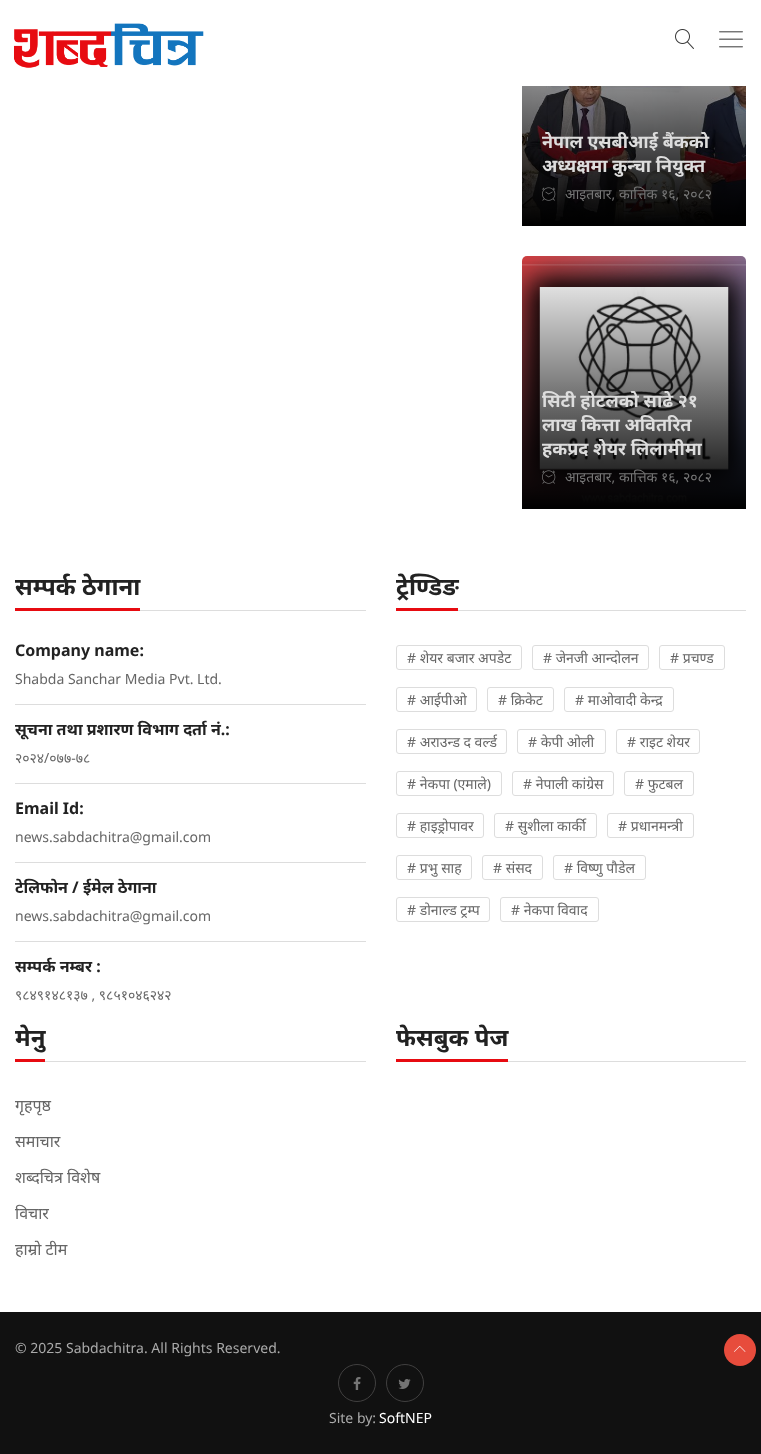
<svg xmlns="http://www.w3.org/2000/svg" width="761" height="1454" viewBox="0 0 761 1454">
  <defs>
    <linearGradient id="g1" gradientUnits="userSpaceOnUse" x1="634" y1="-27" x2="634" y2="226"><stop offset="0" stop-color="#000000" stop-opacity="0"/><stop offset="1" stop-color="#000000"/></linearGradient>
    <linearGradient id="g2" gradientUnits="userSpaceOnUse" x1="634" y1="256" x2="634" y2="509"><stop offset="0" stop-color="#000000" stop-opacity="0"/><stop offset="1" stop-color="#000000"/></linearGradient>
  </defs>
  <rect width="100%" height="100%" fill="#ffffff"/>
  <image x="14" y="23" width="190" height="45" href="img1.png"/>
  <image x="675" y="29" width="19" height="20" href="img2.png"/>
  <image x="719" y="31" width="24" height="17" href="img3.png"/>
  <image x="522" y="86" width="224" height="139" href="img4.png"/>
  <rect x="522" y="86" width="224" height="140" fill="url(#g1)"/>
  <text x="542" y="148" font-family="Noto Sans" font-size="18" font-weight="bold" fill="#dddddd">नेपाल एसबीआई बैंकको</text>
  <text x="542" y="172" font-family="Noto Sans" font-size="18" font-weight="bold" fill="#dddddd">अध्यक्षमा कुन्चा नियुक्त</text>
  <image x="542" y="187" width="14" height="14" href="img5.png"/>
  <text x="565" y="199" font-family="Noto Sans" font-size="14" fill="#777777">आइतबार, कात्तिक १६, २०८२</text>
  <image x="522" y="256" width="224" height="252" href="img6.png"/>
  <rect x="522" y="261" width="224" height="248" fill="url(#g2)"/>
  <text x="542" y="407" font-family="Noto Sans" font-size="18" font-weight="bold" fill="#dddddd">सिटी होटलको साढे २१</text>
  <text x="542" y="431" font-family="Noto Sans" font-size="18" font-weight="bold" fill="#dddddd">लाख कित्ता अवितरित</text>
  <text x="542" y="455" font-family="Noto Sans" font-size="18" font-weight="bold" fill="#dddddd">हकप्रद शेयर लिलामीमा</text>
  <image x="542" y="470" width="14" height="14" href="img7.png"/>
  <text x="565" y="482" font-family="Noto Sans" font-size="14" fill="#777777">आइतबार, कात्तिक १६, २०८२</text>
  <rect x="15" y="608" width="125" height="3" fill="#e70b11"/>
  <text x="15" y="595" font-family="Noto Sans" font-size="24" font-weight="bold" fill="#222222">सम्पर्क ठेगाना</text>
  <rect x="140" y="610" width="226" height="1" fill="#dddddd"/>
  <text x="15" y="656" font-family="Noto Sans" font-size="16" font-weight="bold" fill="#222222">Company name:</text>
  <text x="15" y="684" font-family="Noto Sans" font-size="14" fill="#666666">Shabda Sanchar Media Pvt. Ltd.</text>
  <rect x="15" y="704" width="351" height="1" fill="#dddddd"/>
  <text x="15" y="735" font-family="Noto Sans" font-size="16" font-weight="bold" fill="#222222">सूचना तथा प्रशारण विभाग दर्ता नं.:</text>
  <text x="15" y="763" font-family="Noto Sans" font-size="14" fill="#666666">२०२४/०७७-७८</text>
  <rect x="15" y="783" width="351" height="1" fill="#dddddd"/>
  <text x="15" y="814" font-family="Noto Sans" font-size="16" font-weight="bold" fill="#222222">Email Id:</text>
  <text x="15" y="842" font-family="Noto Sans" font-size="14" fill="#666666">news.sabdachitra@gmail.com</text>
  <rect x="15" y="862" width="351" height="1" fill="#dddddd"/>
  <text x="15" y="893" font-family="Noto Sans" font-size="16" font-weight="bold" fill="#222222">टेलिफोन / ईमेल ठेगाना</text>
  <text x="15" y="921" font-family="Noto Sans" font-size="14" fill="#666666">news.sabdachitra@gmail.com</text>
  <rect x="15" y="941" width="351" height="1" fill="#dddddd"/>
  <text x="15" y="972" font-family="Noto Sans" font-size="16" font-weight="bold" fill="#222222">सम्पर्क नम्बर :</text>
  <text x="15" y="1000" font-family="Noto Sans" font-size="14" fill="#666666">९८४९१४८१३७ , ९८५१०४६२४२</text>
  <rect x="396" y="608" width="62" height="3" fill="#e70b11"/>
  <text x="396" y="595" font-family="Noto Sans" font-size="24" font-weight="bold" fill="#222222">ट्रेण्डिङ</text>
  <rect x="458" y="610" width="288" height="1" fill="#dddddd"/>
  <rect x="396.5" y="645.5" width="125" height="24" rx="2.5" fill="none" stroke="#dddddd"/>
  <text x="407" y="663" font-family="Noto Sans" font-size="14" fill="#666666"># शेयर बजार अपडेट</text>
  <rect x="532.5" y="645.5" width="116" height="24" rx="2.5" fill="none" stroke="#dddddd"/>
  <text x="543" y="663" font-family="Noto Sans" font-size="14" fill="#666666"># जेनजी आन्दोलन</text>
  <rect x="659.5" y="645.5" width="65" height="24" rx="2.5" fill="none" stroke="#dddddd"/>
  <text x="670" y="663" font-family="Noto Sans" font-size="14" fill="#666666"># प्रचण्ड</text>
  <rect x="396.5" y="687.5" width="80" height="24" rx="2.5" fill="none" stroke="#dddddd"/>
  <text x="407" y="705" font-family="Noto Sans" font-size="14" fill="#666666"># आईपीओ</text>
  <rect x="487.5" y="687.5" width="66" height="24" rx="2.5" fill="none" stroke="#dddddd"/>
  <text x="498" y="705" font-family="Noto Sans" font-size="14" fill="#666666"># क्रिकेट</text>
  <rect x="564.5" y="687.5" width="109" height="24" rx="2.5" fill="none" stroke="#dddddd"/>
  <text x="575" y="705" font-family="Noto Sans" font-size="14" fill="#666666"># माओवादी केन्द्र</text>
  <rect x="396.5" y="729.5" width="110" height="24" rx="2.5" fill="none" stroke="#dddddd"/>
  <text x="407" y="747" font-family="Noto Sans" font-size="14" fill="#666666"># अराउन्ड द वर्ल्ड</text>
  <rect x="517.5" y="729.5" width="88" height="24" rx="2.5" fill="none" stroke="#dddddd"/>
  <text x="528" y="747" font-family="Noto Sans" font-size="14" fill="#666666"># केपी ओली</text>
  <rect x="616.5" y="729.5" width="83" height="24" rx="2.5" fill="none" stroke="#dddddd"/>
  <text x="627" y="747" font-family="Noto Sans" font-size="14" fill="#666666"># राइट शेयर</text>
  <rect x="396.5" y="771.5" width="105" height="24" rx="2.5" fill="none" stroke="#dddddd"/>
  <text x="407" y="789" font-family="Noto Sans" font-size="14" fill="#666666"># नेकपा (एमाले)</text>
  <rect x="512.5" y="771.5" width="101" height="24" rx="2.5" fill="none" stroke="#dddddd"/>
  <text x="523" y="789" font-family="Noto Sans" font-size="14" fill="#666666"># नेपाली कांग्रेस</text>
  <rect x="624.5" y="771.5" width="69" height="24" rx="2.5" fill="none" stroke="#dddddd"/>
  <text x="635" y="789" font-family="Noto Sans" font-size="14" fill="#666666"># फुटबल</text>
  <rect x="396.5" y="813.5" width="87" height="24" rx="2.5" fill="none" stroke="#dddddd"/>
  <text x="407" y="831" font-family="Noto Sans" font-size="14" fill="#666666"># हाइड्रोपावर</text>
  <rect x="494.5" y="813.5" width="102" height="24" rx="2.5" fill="none" stroke="#dddddd"/>
  <text x="505" y="831" font-family="Noto Sans" font-size="14" fill="#666666"># सुशीला कार्की</text>
  <rect x="607.5" y="813.5" width="86" height="24" rx="2.5" fill="none" stroke="#dddddd"/>
  <text x="618" y="831" font-family="Noto Sans" font-size="14" fill="#666666"># प्रधानमन्त्री</text>
  <rect x="396.5" y="855.5" width="75" height="24" rx="2.5" fill="none" stroke="#dddddd"/>
  <text x="407" y="873" font-family="Noto Sans" font-size="14" fill="#666666"># प्रभु साह</text>
  <rect x="482.5" y="855.5" width="60" height="24" rx="2.5" fill="none" stroke="#dddddd"/>
  <text x="493" y="873" font-family="Noto Sans" font-size="14" fill="#666666"># संसद</text>
  <rect x="553.5" y="855.5" width="92" height="24" rx="2.5" fill="none" stroke="#dddddd"/>
  <text x="564" y="873" font-family="Noto Sans" font-size="14" fill="#666666"># विष्णु पौडेल</text>
  <rect x="396.5" y="897.5" width="93" height="24" rx="2.5" fill="none" stroke="#dddddd"/>
  <text x="407" y="915" font-family="Noto Sans" font-size="14" fill="#666666"># डोनाल्ड ट्रम्प</text>
  <rect x="500.5" y="897.5" width="98" height="24" rx="2.5" fill="none" stroke="#dddddd"/>
  <text x="511" y="915" font-family="Noto Sans" font-size="14" fill="#666666"># नेकपा विवाद</text>
  <rect x="15" y="1059" width="30" height="3" fill="#e70b11"/>
  <text x="15" y="1046" font-family="Noto Sans" font-size="24" font-weight="bold" fill="#222222">मेनु</text>
  <rect x="45" y="1061" width="321" height="1" fill="#dddddd"/>
  <text x="15" y="1111" font-family="Noto Sans" font-size="16" fill="#666666">गृहपृष्ठ</text>
  <text x="15" y="1147" font-family="Noto Sans" font-size="16" fill="#666666">समाचार</text>
  <text x="15" y="1183" font-family="Noto Sans" font-size="16" fill="#666666">शब्दचित्र विशेष</text>
  <text x="15" y="1219" font-family="Noto Sans" font-size="16" fill="#666666">विचार</text>
  <text x="15" y="1255" font-family="Noto Sans" font-size="16" fill="#666666">हाम्रो टीम</text>
  <rect x="396" y="1059" width="112" height="3" fill="#e70b11"/>
  <text x="396" y="1046" font-family="Noto Sans" font-size="24" font-weight="bold" fill="#222222">फेसबुक पेज</text>
  <rect x="508" y="1061" width="238" height="1" fill="#dddddd"/>
  <rect x="0" y="1312" width="761" height="142" fill="#111111"/>
  <text x="15" y="1353" font-family="Noto Sans" font-size="14" fill="#aaaaaa">© 2025 Sabdachitra. All Rights Reserved.</text>
  <circle cx="357" cy="1383" r="18.5" fill="none" stroke="#414040"/>
  <image x="353" y="1377" width="8" height="13" href="img8.png"/>
  <circle cx="405" cy="1383" r="18.5" fill="none" stroke="#414040"/>
  <image x="398" y="1379" width="13" height="10" href="img9.png"/>
  <text x="329" y="1423" font-family="Noto Sans" font-size="14" fill="#aaaaaa">Site by:</text>
  <text x="379" y="1423" font-family="Noto Sans" font-size="14" fill="#ffffff">SoftNEP</text>
  <circle cx="740" cy="1350" r="16" fill="#e74c3c"/>
  <image x="734" y="1345" width="12" height="7" href="img10.png"/>
</svg>
